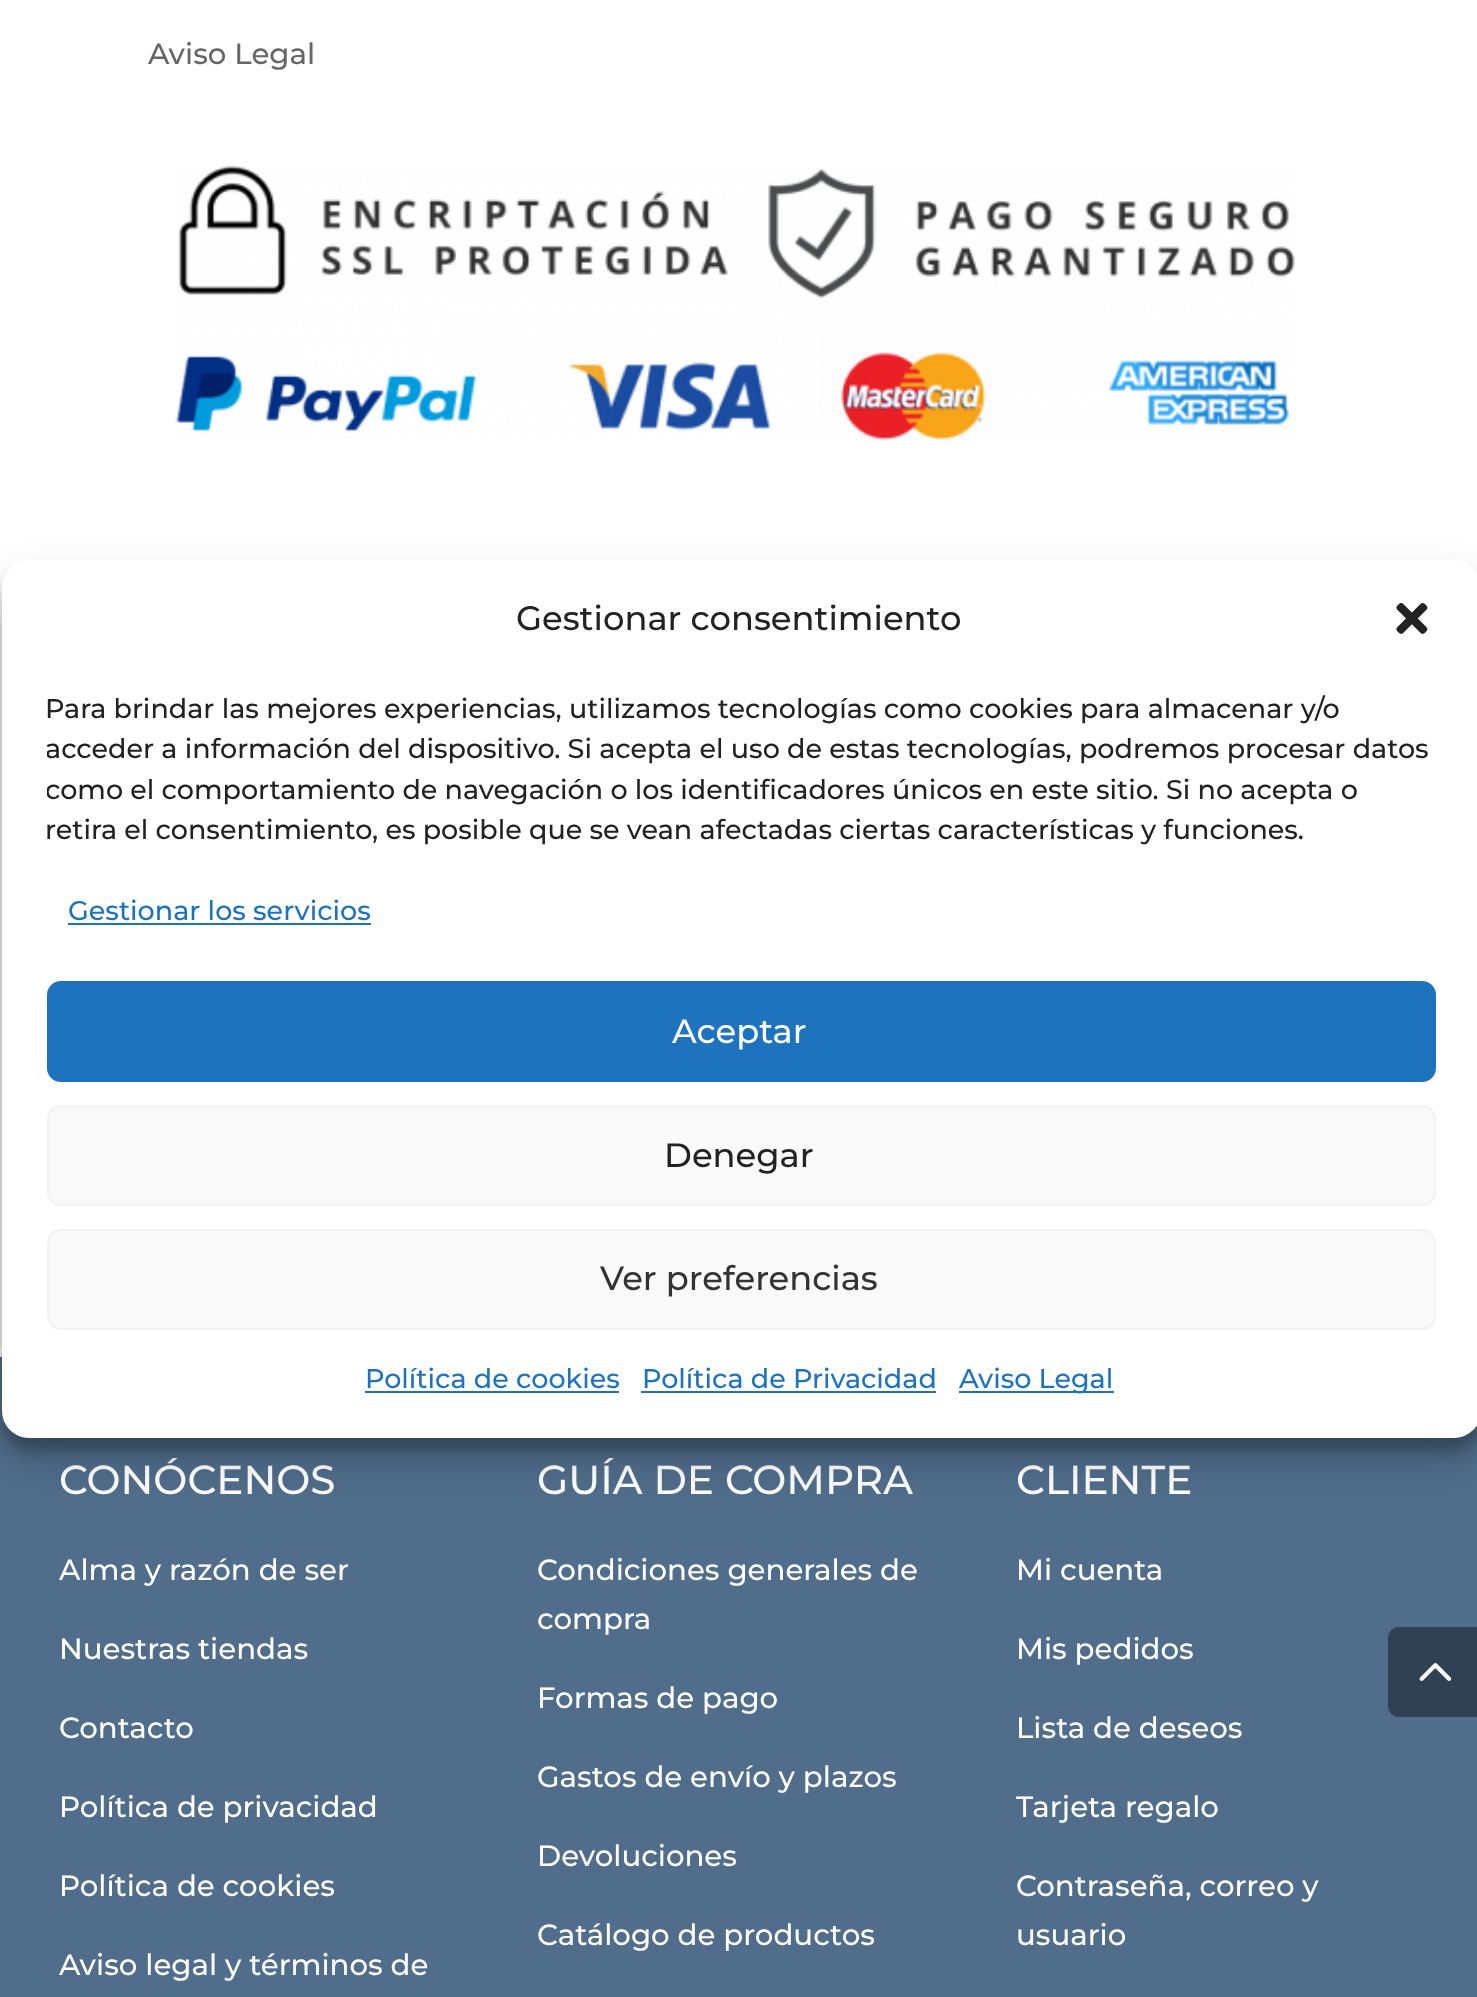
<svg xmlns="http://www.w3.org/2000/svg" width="1477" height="1997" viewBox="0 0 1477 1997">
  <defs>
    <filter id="blur1" x="-50%" y="-200%" width="200%" height="500%"><feGaussianBlur stdDeviation="7"/></filter>
    <filter id="blur2" x="-50%" y="-200%" width="200%" height="500%"><feGaussianBlur stdDeviation="22.5"/></filter>
    <clipPath id="clip1"><rect x="47" y="689" width="1389" height="173"/></clipPath>
  </defs>
  <rect width="100%" height="100%" fill="#ffffff"/>
  <text x="148" y="64" font-family="Montserrat" font-size="29.25" font-weight="500" fill="#666666">Aviso Legal</text>
  <image x="175" y="165" width="1120" height="276" href="img1.png"/>
  <rect x="0" y="623" width="2" height="723" fill="#f7f1ec"/>
  <rect x="0" y="1357" width="1477" height="640" fill="#506d8b"/>
  <text x="59" y="1494" font-family="Montserrat" font-size="40.5" font-weight="500" fill="#ffffff">CONÓCENOS</text>
  <text x="59" y="1580" font-family="Montserrat" font-size="29.25" font-weight="500" fill="#ffffff">Alma y razón de ser</text>
  <text x="59" y="1659" font-family="Montserrat" font-size="29.25" font-weight="500" fill="#ffffff">Nuestras tiendas</text>
  <text x="59" y="1738" font-family="Montserrat" font-size="29.25" font-weight="500" fill="#ffffff">Contacto</text>
  <text x="59" y="1817" font-family="Montserrat" font-size="29.25" font-weight="500" fill="#ffffff">Política de privacidad</text>
  <text x="59" y="1896" font-family="Montserrat" font-size="29.25" font-weight="500" fill="#ffffff">Política de cookies</text>
  <text x="59" y="1975" font-family="Montserrat" font-size="29.25" font-weight="500" fill="#ffffff">Aviso legal y términos de</text>
  <text x="537" y="1494" font-family="Montserrat" font-size="40.5" font-weight="500" fill="#ffffff">GUÍA DE COMPRA</text>
  <text x="537" y="1580" font-family="Montserrat" font-size="29.25" font-weight="500" fill="#ffffff">Condiciones generales de</text>
  <text x="537" y="1629" font-family="Montserrat" font-size="29.25" font-weight="500" fill="#ffffff">compra</text>
  <text x="537" y="1708" font-family="Montserrat" font-size="29.25" font-weight="500" fill="#ffffff">Formas de pago</text>
  <text x="537" y="1787" font-family="Montserrat" font-size="29.25" font-weight="500" fill="#ffffff">Gastos de envío y plazos</text>
  <text x="537" y="1866" font-family="Montserrat" font-size="29.25" font-weight="500" fill="#ffffff">Devoluciones</text>
  <text x="537" y="1945" font-family="Montserrat" font-size="29.25" font-weight="500" fill="#ffffff">Catálogo de productos</text>
  <text x="1016" y="1494" font-family="Montserrat" font-size="40.5" font-weight="500" fill="#ffffff">CLIENTE</text>
  <text x="1016" y="1580" font-family="Montserrat" font-size="29.25" font-weight="500" fill="#ffffff">Mi cuenta</text>
  <text x="1016" y="1659" font-family="Montserrat" font-size="29.25" font-weight="500" fill="#ffffff">Mis pedidos</text>
  <text x="1016" y="1738" font-family="Montserrat" font-size="29.25" font-weight="500" fill="#ffffff">Lista de deseos</text>
  <text x="1016" y="1817" font-family="Montserrat" font-size="29.25" font-weight="500" fill="#ffffff">Tarjeta regalo</text>
  <text x="1016" y="1896" font-family="Montserrat" font-size="29.25" font-weight="500" fill="#ffffff">Contraseña, correo y</text>
  <text x="1016" y="1945" font-family="Montserrat" font-size="29.25" font-weight="500" fill="#ffffff">usuario</text>
  <rect x="2" y="574" width="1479" height="877" rx="27" fill="#000000" fill-opacity="0.23" filter="url(#blur1)"/>
  <rect x="2" y="583" width="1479" height="877" rx="27" fill="#000000" fill-opacity="0.19" filter="url(#blur2)"/>
  <rect x="2" y="560" width="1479" height="878" rx="27" fill="#ffffff"/>
  <text x="516" y="630" font-family="Montserrat" font-size="33.75" font-weight="500" fill="#222222">Gestionar consentimiento</text>
  <image x="1396" y="603" width="32" height="31" href="img2.png"/>
  <text x="45" y="718" font-family="Montserrat" font-size="27" font-weight="500" fill="#222222">Para brindar las mejores experiencias, utilizamos tecnologías como cookies para almacenar y/o</text>
  <g clip-path="url(#clip1)">
    <text x="45" y="758" font-family="Montserrat" font-size="27" font-weight="500" fill="#222222">acceder a información del dispositivo. Si acepta el uso de estas tecnologías, podremos procesar datos</text>
    <text x="45" y="799" font-family="Montserrat" font-size="27" font-weight="500" fill="#222222">como el comportamiento de navegación o los identificadores únicos en este sitio. Si no acepta o</text>
  </g>
  <text x="45" y="839" font-family="Montserrat" font-size="27" font-weight="500" fill="#222222">retira el consentimiento, es posible que se vean afectadas ciertas características y funciones.</text>
  <text x="68" y="920" font-family="Montserrat" font-size="27" font-weight="500" fill="#1e73be">Gestionar los servicios</text>
  <rect x="68" y="923" width="303" height="2" fill="#1e73be"/>
  <rect x="48" y="982" width="1387" height="99" rx="13" fill="#1e73be" stroke="#1e73be" stroke-width="2"/>
  <text x="672" y="1043" font-family="Montserrat" font-size="33.75" font-weight="500" fill="#ffffff">Aceptar</text>
  <rect x="48" y="1106" width="1387" height="99" rx="13" fill="#f9f9f9" stroke="#f2f2f2" stroke-width="2"/>
  <text x="664" y="1167" font-family="Montserrat" font-size="33.75" font-weight="500" fill="#222222">Denegar</text>
  <rect x="48" y="1230" width="1387" height="99" rx="13" fill="#f9f9f9" stroke="#f2f2f2" stroke-width="2"/>
  <text x="600" y="1290" font-family="Montserrat" font-size="33.75" font-weight="500" fill="#333333">Ver preferencias</text>
  <text x="365" y="1388" font-family="Montserrat" font-size="27" font-weight="500" fill="#1e73be">Política de cookies</text>
  <rect x="365" y="1391" width="254" height="2" fill="#1e73be"/>
  <text x="642" y="1388" font-family="Montserrat" font-size="27" font-weight="500" fill="#1e73be">Política de Privacidad</text>
  <rect x="641" y="1391" width="295" height="2" fill="#1e73be"/>
  <rect x="959" y="1391" width="155" height="2" fill="#1e73be"/>
  <text x="959" y="1388" font-family="Montserrat" font-size="27" font-weight="500" fill="#1e73be">Aviso Legal</text>
  <path d="M1399 1627H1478V1717H1399C1393 1717 1388 1712 1388 1706V1638C1388 1632 1393 1627 1399 1627Z" fill="#304153"/>
  <image x="1419" y="1663" width="33" height="18" href="img3.png"/>
</svg>
